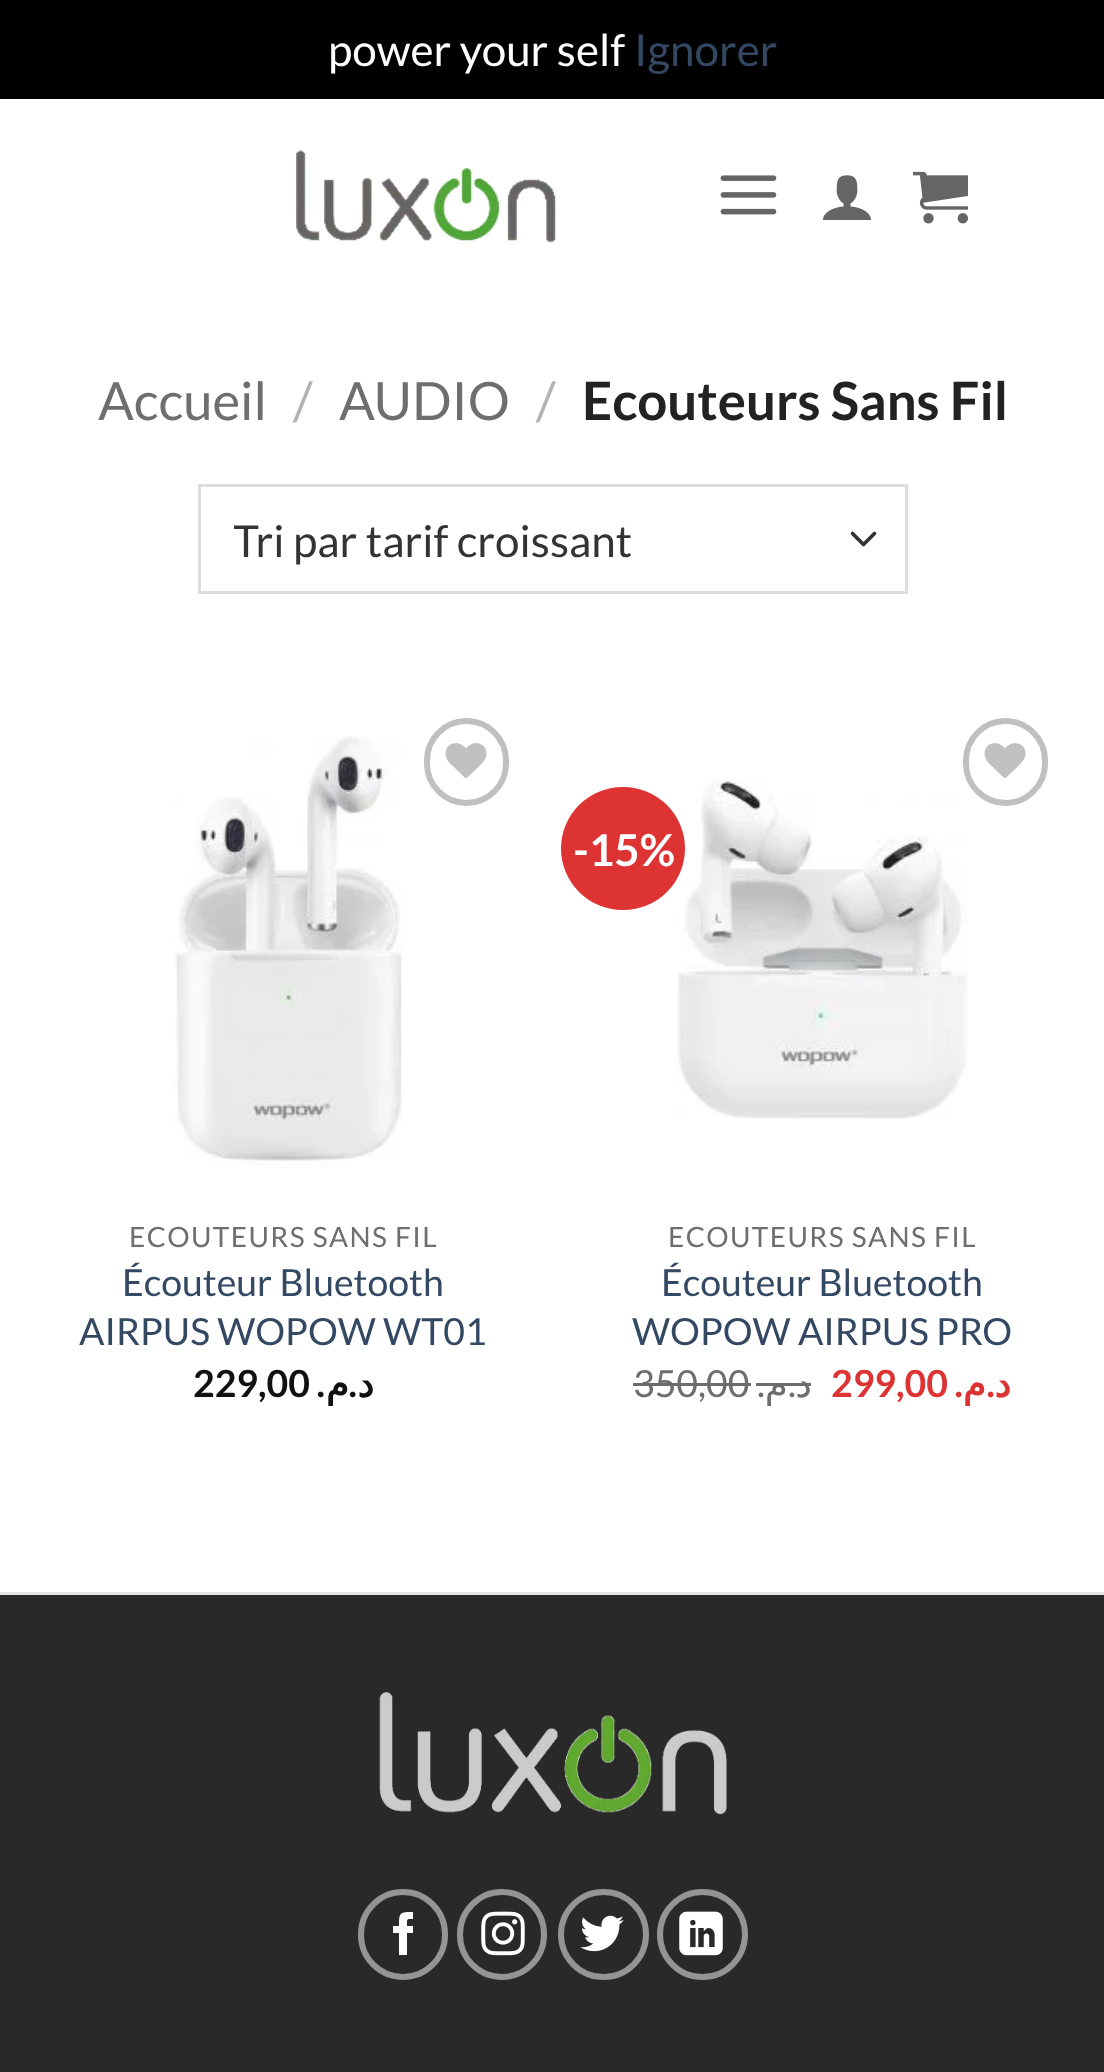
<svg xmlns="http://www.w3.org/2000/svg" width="1104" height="2072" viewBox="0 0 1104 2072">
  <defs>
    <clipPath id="clip1"><rect x="234" y="506" width="610" height="69"/></clipPath>
  </defs>
  <rect width="100%" height="100%" fill="#000000"/>
  <text x="328" y="66" font-family="Lato" font-size="44" fill="#ffffff">power your self</text>
  <text x="634" y="66" font-family="Lato" font-size="44" fill="#334862">Ignorer</text>
  <rect x="0" y="99" width="1104" height="1493" fill="#ffffff"/>
  <image x="296" y="150" width="260" height="93" href="img1.png"/>
  <image x="720" y="175" width="57" height="40" href="img2.png"/>
  <image x="822" y="175" width="50" height="45" href="img3.png"/>
  <image x="913" y="171" width="55" height="53" href="img4.png"/>
  <text x="98" y="420" font-family="Lato" font-size="52.75" fill="#6e6e6e">Accueil</text>
  <text x="293" y="420" font-family="Lato" font-size="52.75" fill="#b2b2b2">/</text>
  <text x="339" y="420" font-family="Lato" font-size="52.75" fill="#6e6e6e">AUDIO</text>
  <text x="536" y="420" font-family="Lato" font-size="52.75" fill="#b2b2b2">/</text>
  <text x="582" y="420" font-family="Lato" font-size="52.75" font-weight="bold" fill="#222222">Ecouteurs Sans Fil</text>
  <path d="M852.5 533.5L863.5 544.5L874.5 533.5" fill="none" stroke="#333333" stroke-width="3.7" stroke-linecap="round" stroke-linejoin="round"/>
  <rect x="199.5" y="485.5" width="707" height="107" fill="none" stroke="#dddddd" stroke-width="3"/>
  <g clip-path="url(#clip1)">
    <text x="233" y="557" font-family="Lato" font-size="44" fill="#333333">Tri par tarif croissant</text>
  </g>
  <image x="174" y="736" width="228" height="432" href="img5.png"/>
  <rect x="427" y="721" width="79" height="82" rx="39.5" fill="none" stroke="#c0c0c0" stroke-width="6"/>
  <image x="445" y="743" width="42" height="36" href="img6.png"/>
  <text x="129" y="1247" font-family="Lato" font-size="28" letter-spacing="1.4" fill="#6e6e6e">ECOUTEURS SANS FIL</text>
  <text x="122" y="1296" font-family="Lato" font-size="37.4" fill="#334862">Écouteur Bluetooth</text>
  <text x="79" y="1345" font-family="Lato" font-size="37.4" fill="#334862">AIRPUS WOPOW WT01</text>
  <text x="193" y="1397" font-family="Lato" font-size="37.4" font-weight="bold" fill="#111111">229,00</text>
  <text x="325" y="1397" font-family="Lato" font-size="37.4" font-weight="bold" direction="rtl" fill="#111111">.</text>
  <text x="349" y="1397" font-family="DejaVu Sans" font-size="37.4" font-weight="bold" direction="rtl" fill="#111111">م</text>
  <text x="357" y="1397" font-family="Lato" font-size="37.4" font-weight="bold" direction="rtl" fill="#111111">.</text>
  <text x="374" y="1397" font-family="DejaVu Sans" font-size="37.4" font-weight="bold" direction="rtl" fill="#111111">د</text>
  <image x="677" y="780" width="291" height="339" href="img7.png"/>
  <rect x="561" y="787" width="124" height="123" rx="61.5" fill="#dd3333"/>
  <text x="573" y="866" font-family="Lato" font-size="44" font-weight="bold" fill="#ffffff">-15%</text>
  <rect x="966" y="721" width="79" height="82" rx="39.5" fill="none" stroke="#c0c0c0" stroke-width="6"/>
  <image x="984" y="743" width="42" height="36" href="img6.png"/>
  <text x="668" y="1247" font-family="Lato" font-size="28" letter-spacing="1.4" fill="#6e6e6e">ECOUTEURS SANS FIL</text>
  <text x="661" y="1296" font-family="Lato" font-size="37.4" fill="#334862">Écouteur Bluetooth</text>
  <text x="632" y="1345" font-family="Lato" font-size="37.4" fill="#334862">WOPOW AIRPUS PRO</text>
  <text x="633" y="1397" font-family="Lato" font-size="37.4" fill="#6e6e6e">350,00</text>
  <rect x="633" y="1383" width="118" height="3" fill="#6c6c6c"/>
  <text x="765" y="1397" font-family="Lato" font-size="37.4" direction="rtl" fill="#6e6e6e">.</text>
  <text x="788" y="1397" font-family="DejaVu Sans" font-size="37.4" direction="rtl" fill="#6e6e6e">م</text>
  <text x="796" y="1397" font-family="Lato" font-size="37.4" direction="rtl" fill="#6e6e6e">.</text>
  <text x="812" y="1397" font-family="DejaVu Sans" font-size="37.4" direction="rtl" fill="#6e6e6e">د</text>
  <rect x="756" y="1383" width="55" height="3" fill="#6c6c6c"/>
  <text x="831" y="1397" font-family="Lato" font-size="37.4" font-weight="bold" fill="#dd3333">299,00</text>
  <text x="963" y="1397" font-family="Lato" font-size="37.4" font-weight="bold" direction="rtl" fill="#dd3333">.</text>
  <text x="986" y="1397" font-family="DejaVu Sans" font-size="37.4" font-weight="bold" direction="rtl" fill="#dd3333">م</text>
  <text x="995" y="1397" font-family="Lato" font-size="37.4" font-weight="bold" direction="rtl" fill="#dd3333">.</text>
  <text x="1011" y="1397" font-family="DejaVu Sans" font-size="37.4" font-weight="bold" direction="rtl" fill="#dd3333">د</text>
  <rect x="0" y="1592" width="1104" height="3" fill="#e6e6e6"/>
  <rect x="0" y="1595" width="1104" height="477" fill="#292929"/>
  <image x="379" y="1692" width="348" height="123" href="img8.png"/>
  <rect x="361" y="1892" width="84" height="85" rx="42" fill="none" stroke="#949494" stroke-width="6"/>
  <path d="M407 1955H399V1933H393V1926H399C399 1912 400 1912 413 1912V1919C406 1919 407 1919 407 1926H413V1933H407Z" fill="#ffffff"/>
  <rect x="460" y="1892" width="84" height="85" rx="42" fill="none" stroke="#949494" stroke-width="6"/>
  <image x="481" y="1911" width="44" height="45" href="img9.png"/>
  <circle cx="603.5" cy="1934.5" r="42.5" fill="none" stroke="#949494" stroke-width="6"/>
  <image x="580" y="1915" width="44" height="37" href="img10.png"/>
  <circle cx="702.5" cy="1934.5" r="42.5" fill="none" stroke="#949494" stroke-width="6"/>
  <image x="679" y="1911" width="44" height="45" href="img11.png"/>
</svg>
